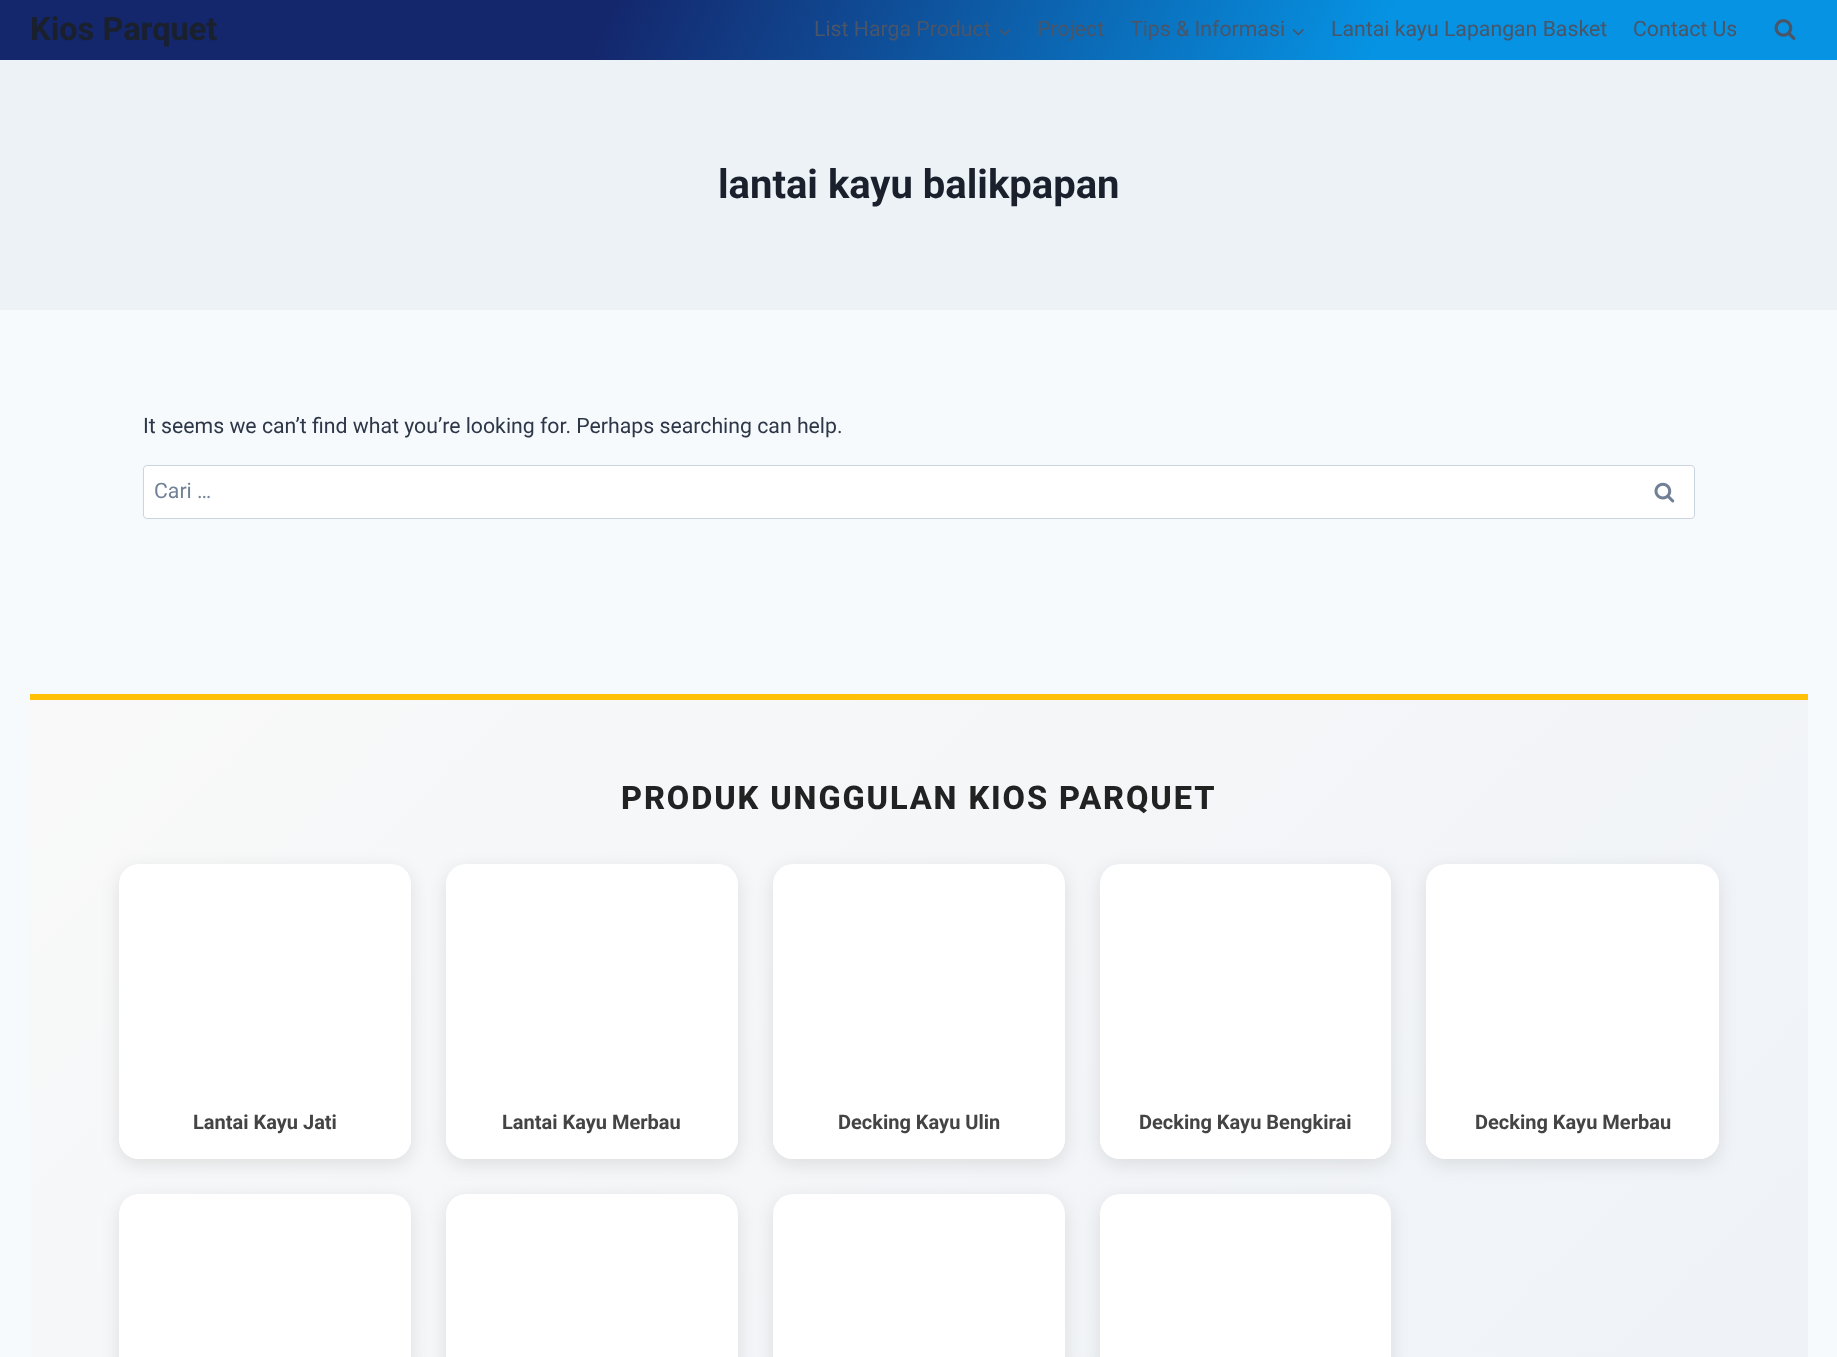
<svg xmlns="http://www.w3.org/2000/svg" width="1837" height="1357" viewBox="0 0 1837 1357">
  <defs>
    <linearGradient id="g1" gradientUnits="userSpaceOnUse" x1="1697" y1="376" x2="141" y2="-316"><stop offset="0.25" stop-color="#0693e3"/><stop offset="0.67" stop-color="#14276d"/></linearGradient>
    <linearGradient id="g2" gradientUnits="userSpaceOnUse" x1="258" y1="472" x2="1579" y2="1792"><stop offset="0" stop-color="#f9f9f9"/><stop offset="1" stop-color="#eef2f7"/></linearGradient>
    <filter id="blur1" x="-50%" y="-200%" width="200%" height="500%"><feGaussianBlur stdDeviation="9"/></filter>
  </defs>
  <rect width="100%" height="100%" fill="#f7fafc"/>
  <rect x="0" y="0" width="1837" height="60" fill="url(#g1)"/>
  <text x="30" y="40" font-family="Roboto" font-size="32.5" font-weight="bold" fill="#1a202c">Kios Parquet</text>
  <text x="814" y="36" font-family="Roboto" font-size="21.25" fill="#4a5568">List Harga Product</text>
  <image x="999" y="29" width="11" height="7" href="img1.png"/>
  <text x="1037" y="36" font-family="Roboto" font-size="21.25" fill="#4a5568">Project</text>
  <text x="1130" y="36" font-family="Roboto" font-size="21.25" fill="#4a5568">Tips &amp; Informasi</text>
  <image x="1292" y="29" width="12" height="7" href="img2.png"/>
  <text x="1331" y="36" font-family="Roboto" font-size="21.25" fill="#4a5568">Lantai kayu Lapangan Basket</text>
  <text x="1633" y="36" font-family="Roboto" font-size="21.25" fill="#4a5568">Contact Us</text>
  <image x="1774" y="19" width="22" height="21" href="img3.png"/>
  <rect x="0" y="60" width="1837" height="250" fill="#edf2f7"/>
  <text x="718" y="198" font-family="Roboto" font-size="40" font-weight="bold" fill="#1a202c">lantai kayu balikpapan</text>
  <text x="143" y="433" font-family="Roboto" font-size="21.25" fill="#2d3748">It seems we can’t find what you’re looking for. Perhaps searching can help.</text>
  <rect x="143.5" y="465.5" width="1551" height="53" rx="3.5" fill="#ffffff" stroke="#cbd5e0"/>
  <text x="154" y="498" font-family="Roboto" font-size="21.25" fill="#718096">Cari …</text>
  <image x="1654" y="482" width="21" height="21" href="img4.png"/>
  <rect x="30" y="700" width="1778" height="657" fill="url(#g2)"/>
  <rect x="30" y="694" width="1778" height="6" fill="#ffc107"/>
  <text x="621" y="809" font-family="Roboto" font-size="32.5" font-weight="800" letter-spacing="1.9" fill="#222222">PRODUK UNGGULAN KIOS PARQUET</text>
  <rect x="119" y="869" width="292" height="295" rx="20" fill="#000000" fill-opacity="0.1" filter="url(#blur1)"/>
  <rect x="119" y="864" width="292" height="295" rx="20" fill="#ffffff"/>
  <path d="M119 1089H411V1139C411 1150 402 1159 391 1159H139C128 1159 119 1150 119 1139Z" fill="#ffffff"/>
  <text x="193" y="1129" font-family="Roboto" font-size="20" font-weight="bold" fill="#444444">Lantai Kayu Jati</text>
  <rect x="446" y="869" width="292" height="295" rx="20" fill="#000000" fill-opacity="0.1" filter="url(#blur1)"/>
  <rect x="446" y="864" width="292" height="295" rx="20" fill="#ffffff"/>
  <path d="M446 1089H738V1139C738 1150 729 1159 718 1159H466C455 1159 446 1150 446 1139Z" fill="#ffffff"/>
  <text x="502" y="1129" font-family="Roboto" font-size="20" font-weight="bold" fill="#444444">Lantai Kayu Merbau</text>
  <rect x="773" y="869" width="292" height="295" rx="20" fill="#000000" fill-opacity="0.1" filter="url(#blur1)"/>
  <rect x="773" y="864" width="292" height="295" rx="20" fill="#ffffff"/>
  <path d="M773 1089H1065V1139C1065 1150 1056 1159 1045 1159H793C782 1159 773 1150 773 1139Z" fill="#ffffff"/>
  <text x="838" y="1129" font-family="Roboto" font-size="20" font-weight="bold" fill="#444444">Decking Kayu Ulin</text>
  <rect x="1100" y="869" width="291" height="295" rx="20" fill="#000000" fill-opacity="0.1" filter="url(#blur1)"/>
  <rect x="1100" y="864" width="291" height="295" rx="20" fill="#ffffff"/>
  <path d="M1100 1089H1391V1139C1391 1150 1382 1159 1371 1159H1120C1109 1159 1100 1150 1100 1139Z" fill="#ffffff"/>
  <text x="1139" y="1129" font-family="Roboto" font-size="20" font-weight="bold" fill="#444444">Decking Kayu Bengkirai</text>
  <rect x="1426" y="869" width="293" height="295" rx="20" fill="#000000" fill-opacity="0.1" filter="url(#blur1)"/>
  <rect x="1426" y="864" width="293" height="295" rx="20" fill="#ffffff"/>
  <path d="M1426 1089H1719V1139C1719 1150 1710 1159 1699 1159H1446C1435 1159 1426 1150 1426 1139Z" fill="#ffffff"/>
  <text x="1475" y="1129" font-family="Roboto" font-size="20" font-weight="bold" fill="#444444">Decking Kayu Merbau</text>
  <rect x="119" y="1199" width="292" height="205" rx="20" fill="#000000" fill-opacity="0.1" filter="url(#blur1)"/>
  <rect x="119" y="1194" width="292" height="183" rx="20" fill="#ffffff"/>
  <rect x="446" y="1199" width="292" height="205" rx="20" fill="#000000" fill-opacity="0.1" filter="url(#blur1)"/>
  <rect x="446" y="1194" width="292" height="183" rx="20" fill="#ffffff"/>
  <rect x="773" y="1199" width="292" height="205" rx="20" fill="#000000" fill-opacity="0.1" filter="url(#blur1)"/>
  <rect x="773" y="1194" width="292" height="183" rx="20" fill="#ffffff"/>
  <rect x="1100" y="1199" width="291" height="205" rx="20" fill="#000000" fill-opacity="0.1" filter="url(#blur1)"/>
  <rect x="1100" y="1194" width="291" height="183" rx="20" fill="#ffffff"/>
</svg>
